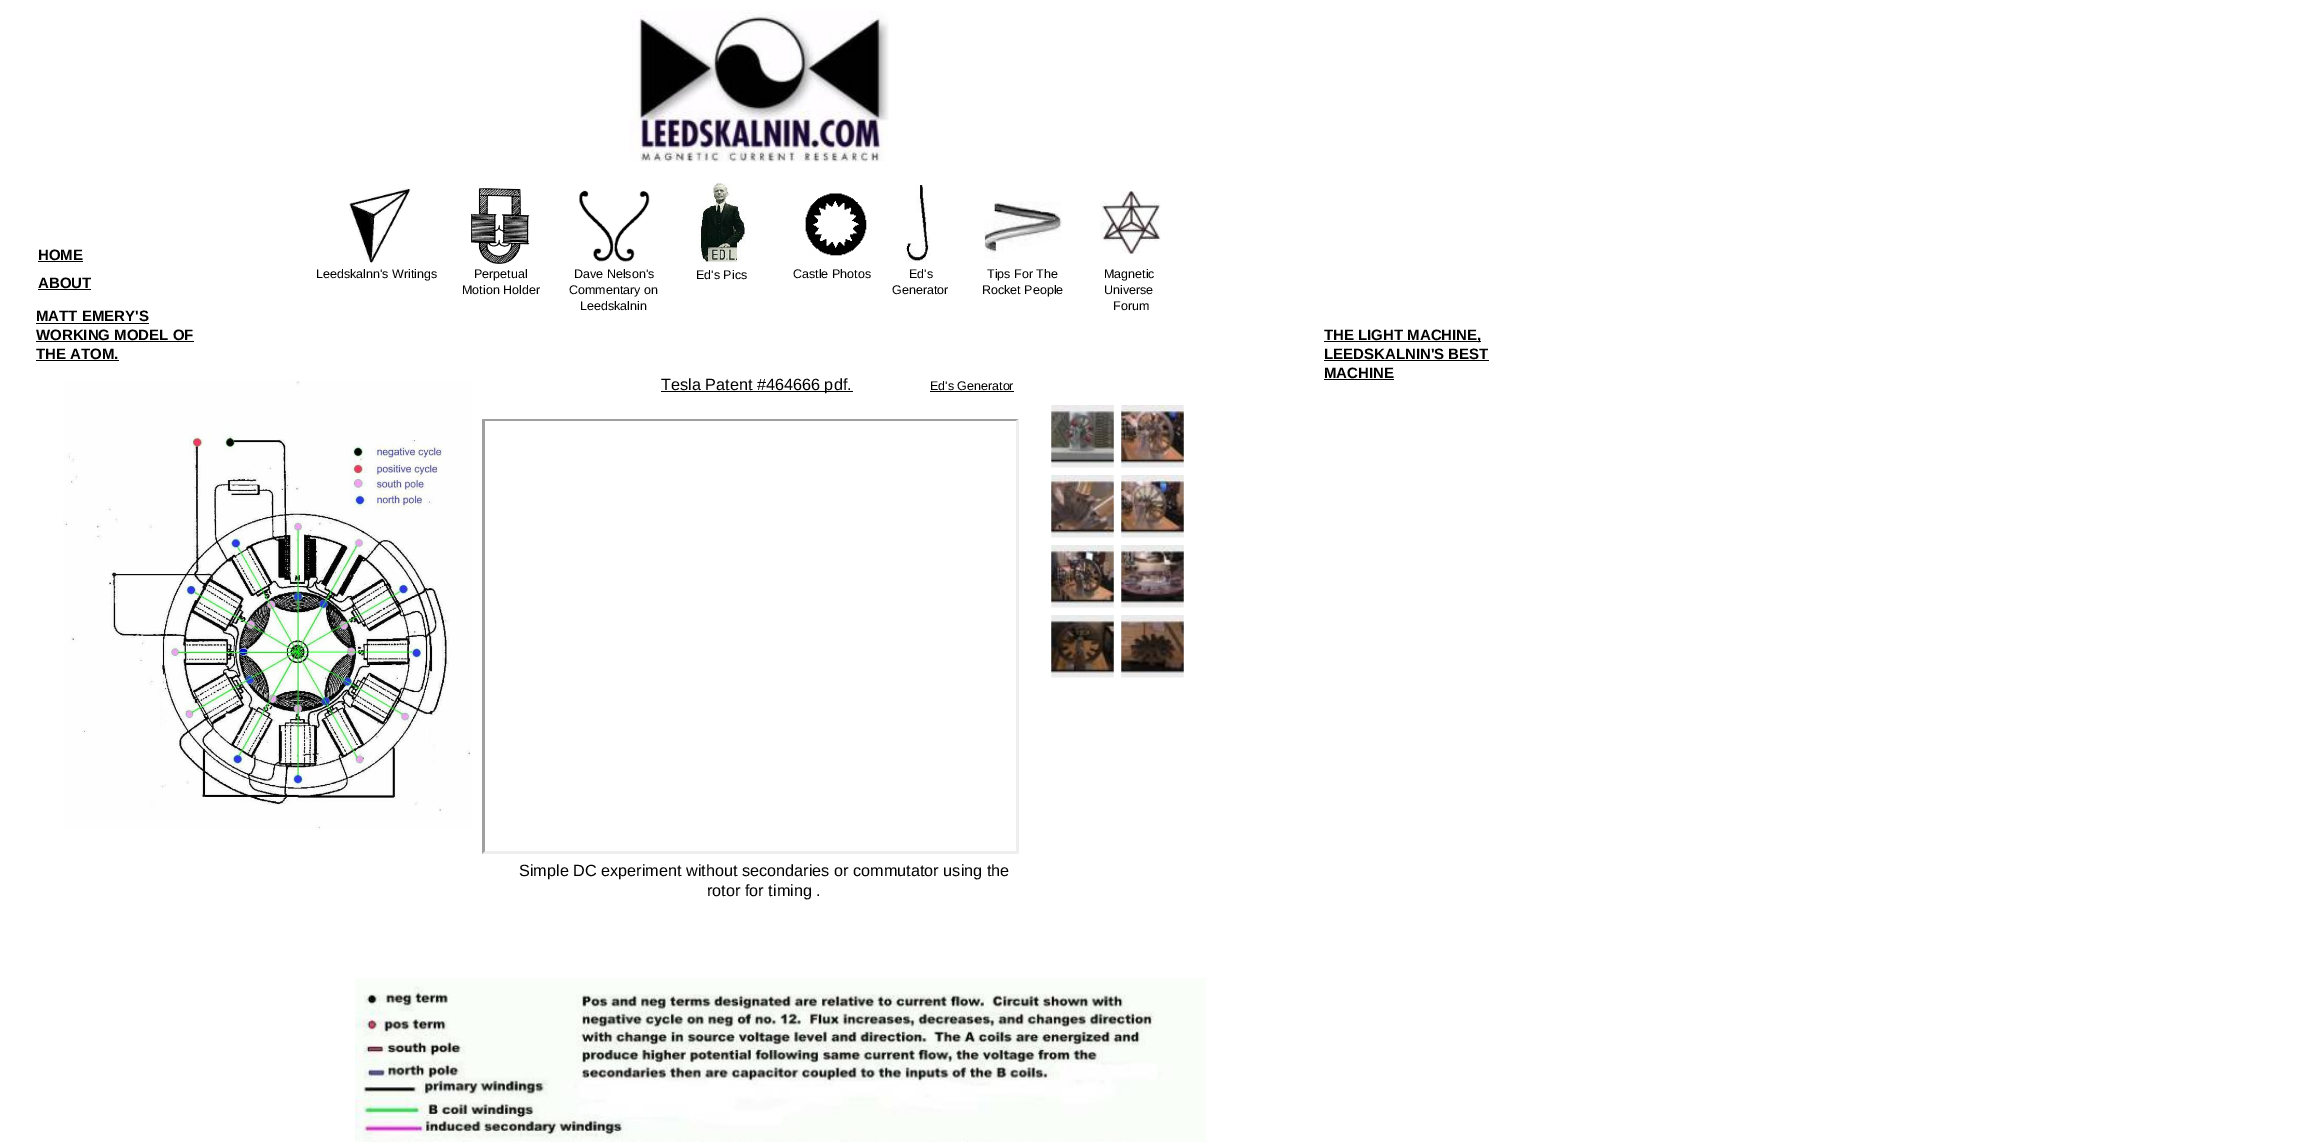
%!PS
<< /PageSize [2303 1142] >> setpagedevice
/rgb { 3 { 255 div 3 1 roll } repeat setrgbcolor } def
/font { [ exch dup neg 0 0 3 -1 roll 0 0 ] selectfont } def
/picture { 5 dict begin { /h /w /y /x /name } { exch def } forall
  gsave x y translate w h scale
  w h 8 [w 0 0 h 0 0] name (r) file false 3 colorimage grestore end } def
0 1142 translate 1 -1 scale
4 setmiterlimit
255 255 255 rgb
0 0 2303 1142 rectfill
(img/1.rgb) 630 10 259 152 picture
0 0 0 rgb
38 261 45 1 rectfill
(img/2.rgb) 349 188 62 75 picture
(img/3.rgb) 471 188 59 76 picture
(img/4.rgb) 579 190 71 72 picture
(img/5.rgb) 698 182 48 81 picture
(img/6.rgb) 805 193 62 63 picture
(img/7.rgb) 905 185 26 77 picture
(img/8.rgb) 984 201 78 58 picture
(img/9.rgb) 1100 191 61 63 picture
[
  [38 289 53 1 0 0 0]
  [36 323 113 1 0 0 0]
  [36 341 158 1 0 0 0]
  [36 360 83 1 0 0 0]
  [1324 341 157 1 0 0 0]
  [1324 360 165 1 0 0 0]
  [1324 379 70 1 0 0 0]
] { aload pop rgb rectfill } forall
(img/10.rgb) 63 381 408 449 picture
661 391 192 1 rectfill
930 391 84 1 rectfill
(img/11.rgb) 1051 405 63 63 picture
(img/12.rgb) 1121 405 63 63 picture
(img/13.rgb) 1051 475 63 63 picture
(img/14.rgb) 1121 475 63 63 picture
(img/15.rgb) 1051 545 63 63 picture
(img/16.rgb) 1121 545 63 63 picture
(img/17.rgb) 1051 615 63 63 picture
(img/18.rgb) 1121 615 63 63 picture
159 159 159 rgb
482 419 moveto 1019 419 lineto 1016 421 lineto 485 421 lineto closepath fill
238 238 238 rgb
1019 419 moveto 1019 854 lineto 1016 851 lineto 1016 421 lineto closepath fill
1019 854 moveto 482 854 lineto 485 851 lineto 1016 851 lineto closepath fill
159 159 159 rgb
482 854 moveto 482 419 lineto 485 421 lineto 485 851 lineto closepath fill
(img/19.rgb) 355 978 851 164 picture
/LiberationSans-Bold 15 font
0 0 0 rgb
38 260 moveto (HOME) show
/LiberationSans-Regular 12.5 font
[
  [(Leedskalnn's Writings) 316 278]
  [(Perpetual) 474 278]
  [(Motion Holder) 462 294]
  [(Dave Nelson's) 574 278]
  [(Commentary on) 569 294]
  [(Leedskalnin) 580 310]
  [(Ed's Pics) 696 279]
  [(Castle Photos) 793 278]
  [(Ed's) 909 278]
  [(Generator) 892 294]
  [(Tips For The) 987 278]
  [(Rocket People) 982 294]
  [(Magnetic) 1104 278]
  [(Universe) 1104 294]
  [(Forum) 1113 310]
] { aload pop moveto show } forall
/LiberationSans-Bold 15 font
[
  [(ABOUT) 38 288]
  [(MATT EMERY'S) 36 321]
  [(WORKING MODEL OF) 36 340]
  [(THE ATOM.) 36 359]
  [(THE LIGHT MACHINE,) 1324 340]
  [(LEEDSKALNIN'S BEST) 1324 359]
  [(MACHINE) 1324 378]
] { aload pop moveto show } forall
/LiberationSans-Regular 16.25 font
661 390 moveto (Tesla Patent #464666 pdf.) show
/LiberationSans-Regular 12.5 font
930 390 moveto (Ed's Generator) show
/LiberationSans-Regular 16.25 font
519 876 moveto (Simple DC experiment without secondaries or commutator using the) show
707 896 moveto (rotor for timing .) show
showpage
